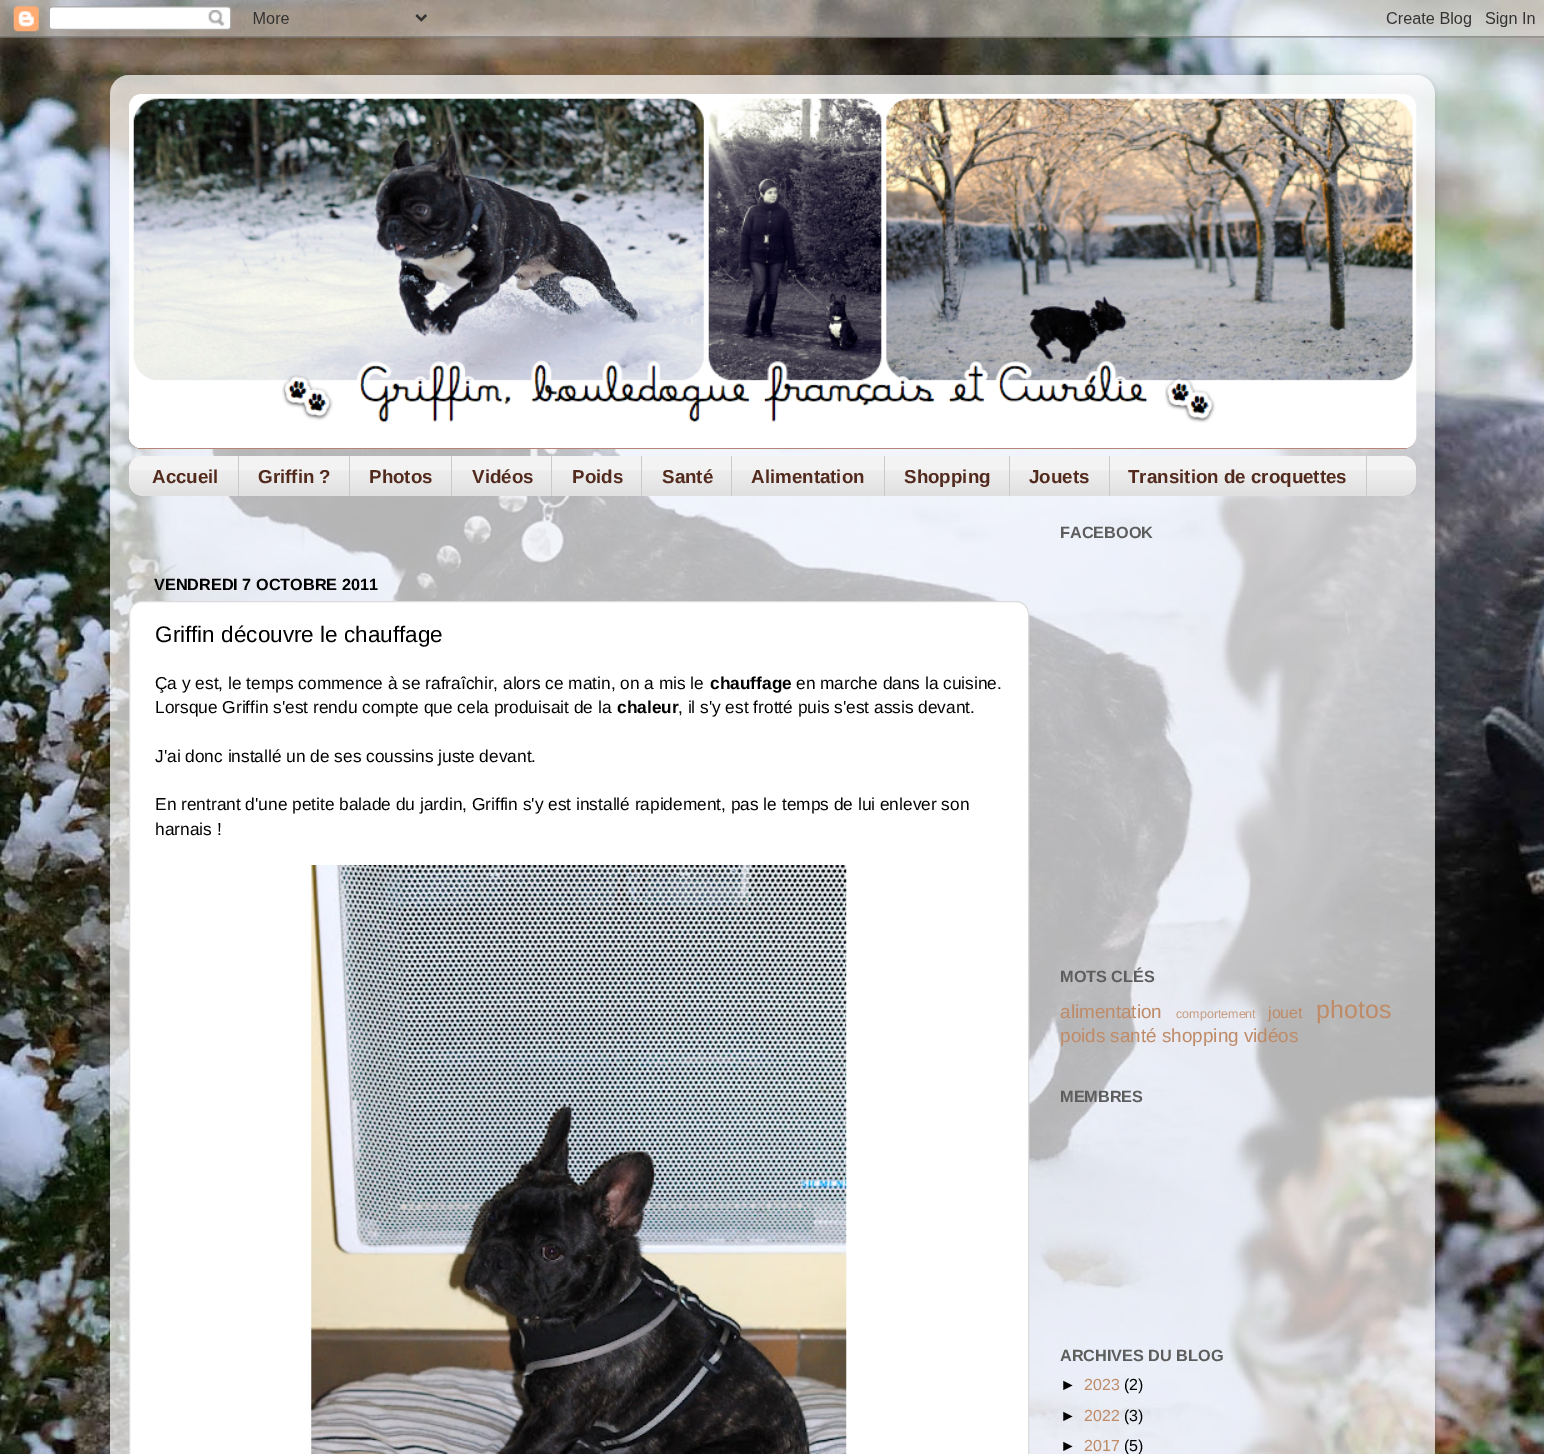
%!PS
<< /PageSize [1544 1454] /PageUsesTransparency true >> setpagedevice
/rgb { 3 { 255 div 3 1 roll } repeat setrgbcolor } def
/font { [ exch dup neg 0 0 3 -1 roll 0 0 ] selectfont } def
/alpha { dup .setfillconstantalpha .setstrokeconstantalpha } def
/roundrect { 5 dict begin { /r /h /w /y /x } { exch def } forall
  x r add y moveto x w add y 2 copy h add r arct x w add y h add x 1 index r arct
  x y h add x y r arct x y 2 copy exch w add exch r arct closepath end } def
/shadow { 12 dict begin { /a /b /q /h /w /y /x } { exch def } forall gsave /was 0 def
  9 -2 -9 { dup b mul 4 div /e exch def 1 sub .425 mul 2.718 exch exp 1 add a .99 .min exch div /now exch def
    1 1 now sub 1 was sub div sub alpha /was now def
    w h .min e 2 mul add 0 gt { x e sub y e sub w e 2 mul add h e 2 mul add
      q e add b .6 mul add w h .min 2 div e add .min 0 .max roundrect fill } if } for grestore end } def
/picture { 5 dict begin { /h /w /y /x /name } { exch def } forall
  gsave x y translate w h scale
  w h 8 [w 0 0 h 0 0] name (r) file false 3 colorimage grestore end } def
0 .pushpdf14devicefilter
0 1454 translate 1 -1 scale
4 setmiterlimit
255 255 255 rgb
0 0 1544 1454 rectfill
(img/1.rgb) 0 0 1544 1454 picture
(img/2.rgb) 0 0 1544 38 picture
gsave
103 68 moveto 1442 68 lineto 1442 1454 lineto 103 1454 lineto closepath 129 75 moveto 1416 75 lineto 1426.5 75 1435 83.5 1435 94 curveto 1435 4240 lineto 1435 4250.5 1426.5 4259 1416 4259 curveto 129 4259 lineto 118.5 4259 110 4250.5 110 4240 curveto 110 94 lineto 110 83.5 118.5 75 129 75 curveto closepath eoclip newpath
0 0 0 rgb
110 75 1325 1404 19 2 0.15 shadow
grestore
(img/3.rgb) 110 75 1325 1379 picture
129 42 14 rgb
129 94 1287 355 13 roundrect fill
(img/4.rgb) 129 94 1287 10 picture
(img/5.rgb) 129 94 1288 355 picture
243 243 243 rgb
129 456 1287 40 13 roundrect fill
(img/6.rgb) 129 470 1287 26 picture
[
  [238 456 1 40 202 202 202]
  [349 456 1 40 202 202 202]
  [451 456 1 40 202 202 202]
  [551 456 1 40 202 202 202]
  [641 456 1 40 202 202 202]
  [731 456 1 40 202 202 202]
  [884 456 1 40 202 202 202]
  [1009 456 1 40 202 202 202]
  [1109 456 1 40 202 202 202]
  [1366 456 1 40 202 202 202]
] { aload pop rgb rectfill } forall
255 255 255 rgb
129.5 601.5 899 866 12.5 roundrect gsave fill grestore
219 219 219 rgb
stroke
(img/7.rgb) 311 865 536 589 picture
/LiberationSans-Bold 18.75 font
82 42 29 rgb
[
  [(Accueil) 152 483]
  [(Griffin ?) 258 483]
  [(Photos) 369 483]
  [(Vidéos) 472 483]
  [(Poids) 572 483]
  [(Santé) 662 483]
  [(Alimentation) 751 483]
  [(Shopping) 904 483]
  [(Jouets) 1029 483]
  [(Transition de croquettes) 1128 483]
] { aload pop moveto show } forall
/LiberationSans-Bold 16.25 font
0 0 0 rgb
154 590 moveto (VENDREDI 7 OCTOBRE 2011) show
/LiberationSans-Regular 22.5 font
155 642 moveto (Griffin découvre le chauffage) show
/LiberationSans-Regular 17.3 font
155 689 moveto (Ça y est, le temps commence à se rafraîchir, alors ce matin, on a mis le) show
/LiberationSans-Bold 17.3 font
710 689 moveto (chauffage) show
/LiberationSans-Regular 17.3 font
796 689 moveto (en marche dans la cuisine.) show
155 713 moveto (Lorsque Griffin s'est rendu compte que cela produisait de la) show
/LiberationSans-Bold 17.3 font
617 713 moveto (chaleur) show
/LiberationSans-Regular 17.3 font
[
  [(, il s'y est frotté puis s'est assis devant.) 678 713]
  [(J'ai donc installé un de ses coussins juste devant.) 155 762]
  [(En rentrant d'une petite balade du jardin, Griffin s'y est installé rapidement, pas le temps de lui enlever son) 155 810]
  [(harnais !) 155 835]
] { aload pop moveto show } forall
/LiberationSans-Bold 16.25 font
93 93 93 rgb
1060 538 moveto (FACEBOOK) show
1060 982 moveto (MOTS CLÉS) show
/LiberationSans-Regular 18.9 font
191 138 102 rgb
1060 1018 moveto (alimentation) show
/LiberationSans-Regular 12.5 font
199 157 130 rgb
1176 1018 moveto (comportement) show
/LiberationSans-Regular 16 font
191 138 102 rgb
1268 1018 moveto (jouet) show
/LiberationSans-Regular 25 font
1316 1018 moveto (photos) show
/LiberationSans-Regular 18.9 font
1060 1042 moveto (poids santé shopping vidéos) show
/LiberationSans-Bold 16.25 font
93 93 93 rgb
1060 1102 moveto (MEMBRES) show
1060 1361 moveto (ARCHIVES DU BLOG) show
/LiberationSans-Regular 16 font
0 0 0 rgb
1060 1390 moveto (►) show
191 138 102 rgb
1084 1390 moveto (2023) show
0 0 0 rgb
1124 1390 moveto (\(2\)) show
1060 1421 moveto (►) show
191 138 102 rgb
1084 1421 moveto (2022) show
0 0 0 rgb
1124 1421 moveto (\(3\)) show
1060 1451 moveto (►) show
191 138 102 rgb
1084 1451 moveto (2017) show
0 0 0 rgb
1124 1451 moveto (\(5\)) show
.poppdf14devicefilter showpage
